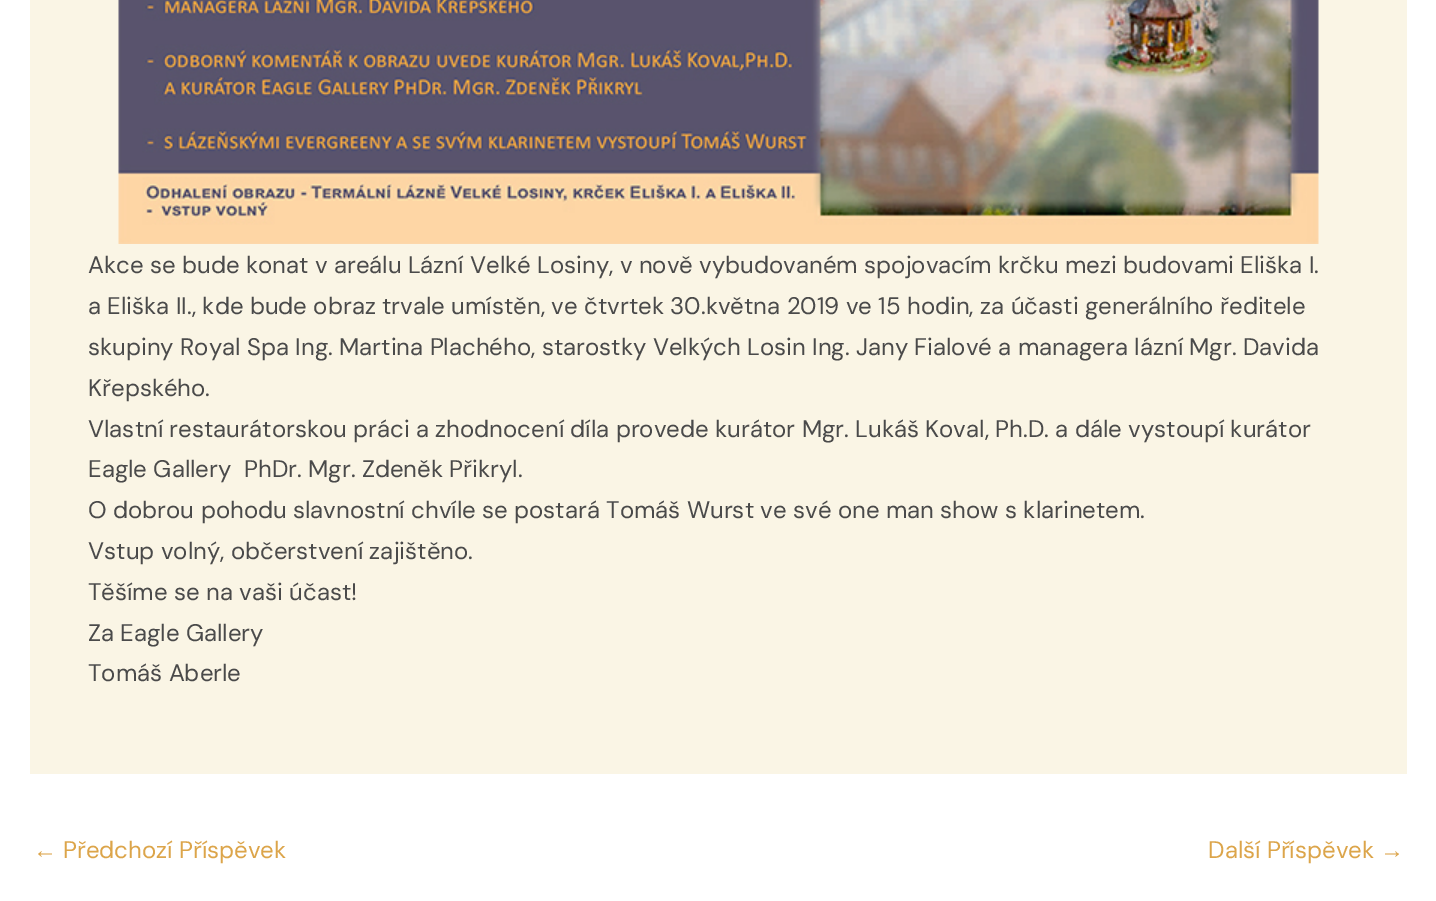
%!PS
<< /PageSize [1436 901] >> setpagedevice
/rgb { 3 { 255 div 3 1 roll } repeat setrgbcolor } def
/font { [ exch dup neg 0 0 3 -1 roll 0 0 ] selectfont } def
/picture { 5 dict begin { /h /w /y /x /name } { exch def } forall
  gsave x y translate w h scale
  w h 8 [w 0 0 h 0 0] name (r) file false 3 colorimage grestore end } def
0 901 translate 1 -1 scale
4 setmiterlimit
255 255 255 rgb
0 0 1436 901 rectfill
250 245 229 rgb
30 0 1377 774 rectfill
(img/1.rgb) 118 0 1201 244 picture
/DMSans-Regular 24 font
74 74 74 rgb
[
  [(Akce se bude konat v areálu Lázní Velké Losiny, v nově vybudovaném spojovacím krčku mezi budovami Eliška I.) 88 273]
  [(a Eliška II., kde bude obraz trvale umístěn, ve čtvrtek 30.května 2019 ve 15 hodin, za účasti generálního ředitele) 88 314]
  [(skupiny Royal Spa Ing. Martina Plachého, starostky Velkých Losin Ing. Jany Fialové a managera lázní Mgr. Davida) 88 355]
  [(Křepského.) 88 396]
  [(Vlastní restaurátorskou práci a zhodnocení díla provede kurátor Mgr. Lukáš Koval, Ph.D. a dále vystoupí kurátor) 88 437]
  [(Eagle Gallery  PhDr. Mgr. Zdeněk Přikryl.) 88 477]
  [(O dobrou pohodu slavnostní chvíle se postará Tomáš Wurst ve své one man show s klarinetem.) 88 518]
  [(Vstup volný, občerstvení zajištěno.) 88 559]
  [(Těšíme se na vaši účast!) 88 600]
  [(Za Eagle Gallery) 88 641]
  [(Tomáš Aberle) 88 681]
] { aload pop moveto show } forall
/LiberationSans-Regular 24 font
220 165 74 rgb
33 858 moveto (←) show
/DMSans-Regular 24 font
63 858 moveto (Předchozí Příspěvek) show
1208 858 moveto (Další Příspěvek) show
/LiberationSans-Regular 24 font
1380 858 moveto (→) show
showpage
